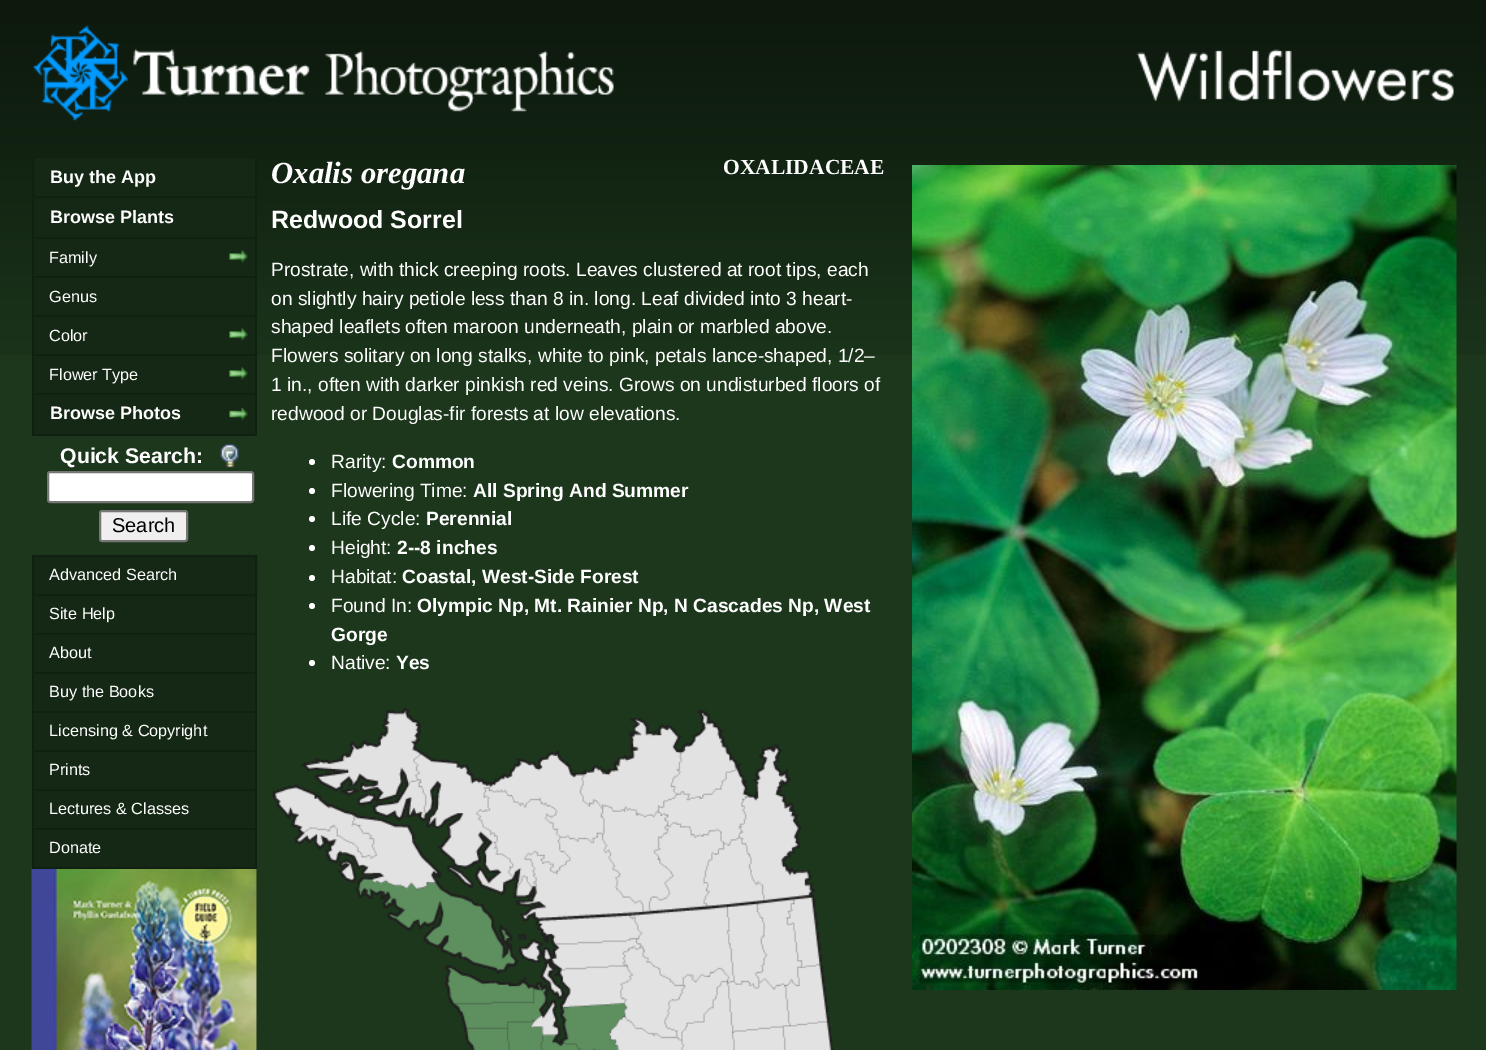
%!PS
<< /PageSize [1486 1050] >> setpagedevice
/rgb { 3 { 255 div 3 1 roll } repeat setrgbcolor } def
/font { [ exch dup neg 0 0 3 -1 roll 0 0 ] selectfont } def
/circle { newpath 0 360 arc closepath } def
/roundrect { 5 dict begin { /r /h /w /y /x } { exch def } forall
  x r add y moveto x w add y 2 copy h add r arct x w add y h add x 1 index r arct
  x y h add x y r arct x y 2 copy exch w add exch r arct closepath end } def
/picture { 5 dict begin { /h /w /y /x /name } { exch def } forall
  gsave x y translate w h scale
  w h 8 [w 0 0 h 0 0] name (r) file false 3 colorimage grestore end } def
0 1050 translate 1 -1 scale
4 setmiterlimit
28 55 28 rgb
0 0 1486 1050 rectfill
(img/1.rgb) 0 0 1486 355 picture
(img/2.rgb) 32 25 582 96 picture
(img/3.rgb) 1136 49 318 53 picture
(img/4.rgb) 256 869 1 181 picture
21 40 21 rgb
34 158 221 276 rectfill
17 33 17 rgb
2 setlinewidth
33 157 223 40 rectstroke
[
  [255 198 2 237 17 33 17]
  [32 237 225 2 17 33 17]
  [32 198 2 41 17 33 17]
  [32 276 225 2 17 33 17]
  [32 239 2 39 17 33 17]
] { aload pop rgb rectfill } forall
(img/5.rgb) 229 250 19 13 picture
[
  [32 315 225 2 17 33 17]
  [32 278 2 39 17 33 17]
  [32 354 225 2 17 33 17]
  [32 317 2 39 17 33 17]
] { aload pop rgb rectfill } forall
(img/5.rgb) 229 328 19 13 picture
32 393 225 2 rectfill
32 356 2 39 rectfill
(img/5.rgb) 229 367 19 13 picture
32 434 225 2 rectfill
32 395 2 40 rectfill
(img/6.rgb) 229 407 19 14 picture
(img/7.rgb) 220 444 19 24 picture
255 255 255 rgb
48 472 205 30 2 roundrect gsave fill grestore
118 118 118 rgb
stroke
239 239 239 rgb
100 511 87 30 2 roundrect gsave fill grestore
118 118 118 rgb
stroke
21 40 21 rgb
34 557 221 310 rectfill
17 33 17 rgb
33 556 223 39 rectstroke
(img/8.rgb) 31 868 226 182 picture
[
  [255 596 2 273 17 33 17]
  [32 633 225 2 17 33 17]
  [32 596 2 39 17 33 17]
  [32 672 225 2 17 33 17]
  [32 635 2 39 17 33 17]
  [32 711 225 2 17 33 17]
  [32 674 2 39 17 33 17]
  [32 750 225 2 17 33 17]
  [32 713 2 39 17 33 17]
  [32 789 225 2 17 33 17]
  [32 752 2 39 17 33 17]
  [32 828 225 2 17 33 17]
  [32 791 2 39 17 33 17]
  [32 867 225 2 17 33 17]
  [32 830 2 39 17 33 17]
] { aload pop rgb rectfill } forall
(img/9.rgb) 912 165 545 825 picture
255 255 255 rgb
312 462 3 circle fill
312 491 3 circle fill
312 519 3 circle fill
312 548 3 circle fill
312 578 3 circle fill
312 606 3 circle fill
312 663 3 circle fill
(img/10.rgb) 272 707 562 343 picture
/LiberationSans-Bold 18 font
50 183 moveto (Buy the App) show
50 223 moveto (Browse Plants) show
/LiberationSans-Regular 16.25 font
[
  [(Family) 49 263]
  [(Genus) 49 302]
  [(Color) 49 341]
  [(Flower Type) 49 380]
] { aload pop moveto show } forall
/LiberationSans-Bold 18 font
50 419 moveto (Browse Photos) show
/LiberationSans-Bold 21.25 font
60 463 moveto (Quick Search:) show
/LiberationSans-Regular 20 font
0 0 0 rgb
112 532 moveto (Search) show
/LiberationSans-Regular 16.25 font
255 255 255 rgb
[
  [(Advanced Search) 49 580]
  [(Site Help) 49 619]
  [(About) 49 658]
  [(Buy the Books) 49 697]
  [(Licensing & Copyright) 49 736]
  [(Prints) 49 775]
  [(Lectures & Classes) 49 814]
  [(Donate) 49 853]
] { aload pop moveto show } forall
/LiberationSerif-BoldItalic 30.75 font
271 183 moveto (Oxalis oregana) show
/LiberationSerif-Bold 21.5 font
723 174 moveto (OXALIDACEAE) show
/LiberationSans-Bold 25 font
271 228 moveto (Redwood Sorrel) show
/LiberationSans-Regular 19.2 font
[
  [(Prostrate, with thick creeping roots. Leaves clustered at root tips, each) 271 276]
  [(on slightly hairy petiole less than 8 in. long. Leaf divided into 3 heart-) 271 305]
  [(shaped leaflets often maroon underneath, plain or marbled above.) 271 333]
  [(Flowers solitary on long stalks, white to pink, petals lance-shaped, 1/2–) 271 362]
  [(1 in., often with darker pinkish red veins. Grows on undisturbed floors of) 271 391]
  [(redwood or Douglas-fir forests at low elevations.) 271 420]
  [(Rarity:) 331 468]
] { aload pop moveto show } forall
/LiberationSans-Bold 19.2 font
392 468 moveto (Common) show
/LiberationSans-Regular 19.2 font
331 497 moveto (Flowering Time:) show
/LiberationSans-Bold 19.2 font
473 497 moveto (All Spring And Summer) show
/LiberationSans-Regular 19.2 font
331 525 moveto (Life Cycle:) show
/LiberationSans-Bold 19.2 font
426 525 moveto (Perennial) show
/LiberationSans-Regular 19.2 font
331 554 moveto (Height:) show
/LiberationSans-Bold 19.2 font
397 554 moveto (2--8 inches) show
/LiberationSans-Regular 19.2 font
331 583 moveto (Habitat:) show
/LiberationSans-Bold 19.2 font
402 583 moveto (Coastal, West-Side Forest) show
/LiberationSans-Regular 19.2 font
331 612 moveto (Found In:) show
/LiberationSans-Bold 19.2 font
417 612 moveto (Olympic Np, Mt. Rainier Np, N Cascades Np, West) show
331 641 moveto (Gorge) show
/LiberationSans-Regular 19.2 font
331 669 moveto (Native:) show
/LiberationSans-Bold 19.2 font
396 669 moveto (Yes) show
showpage
